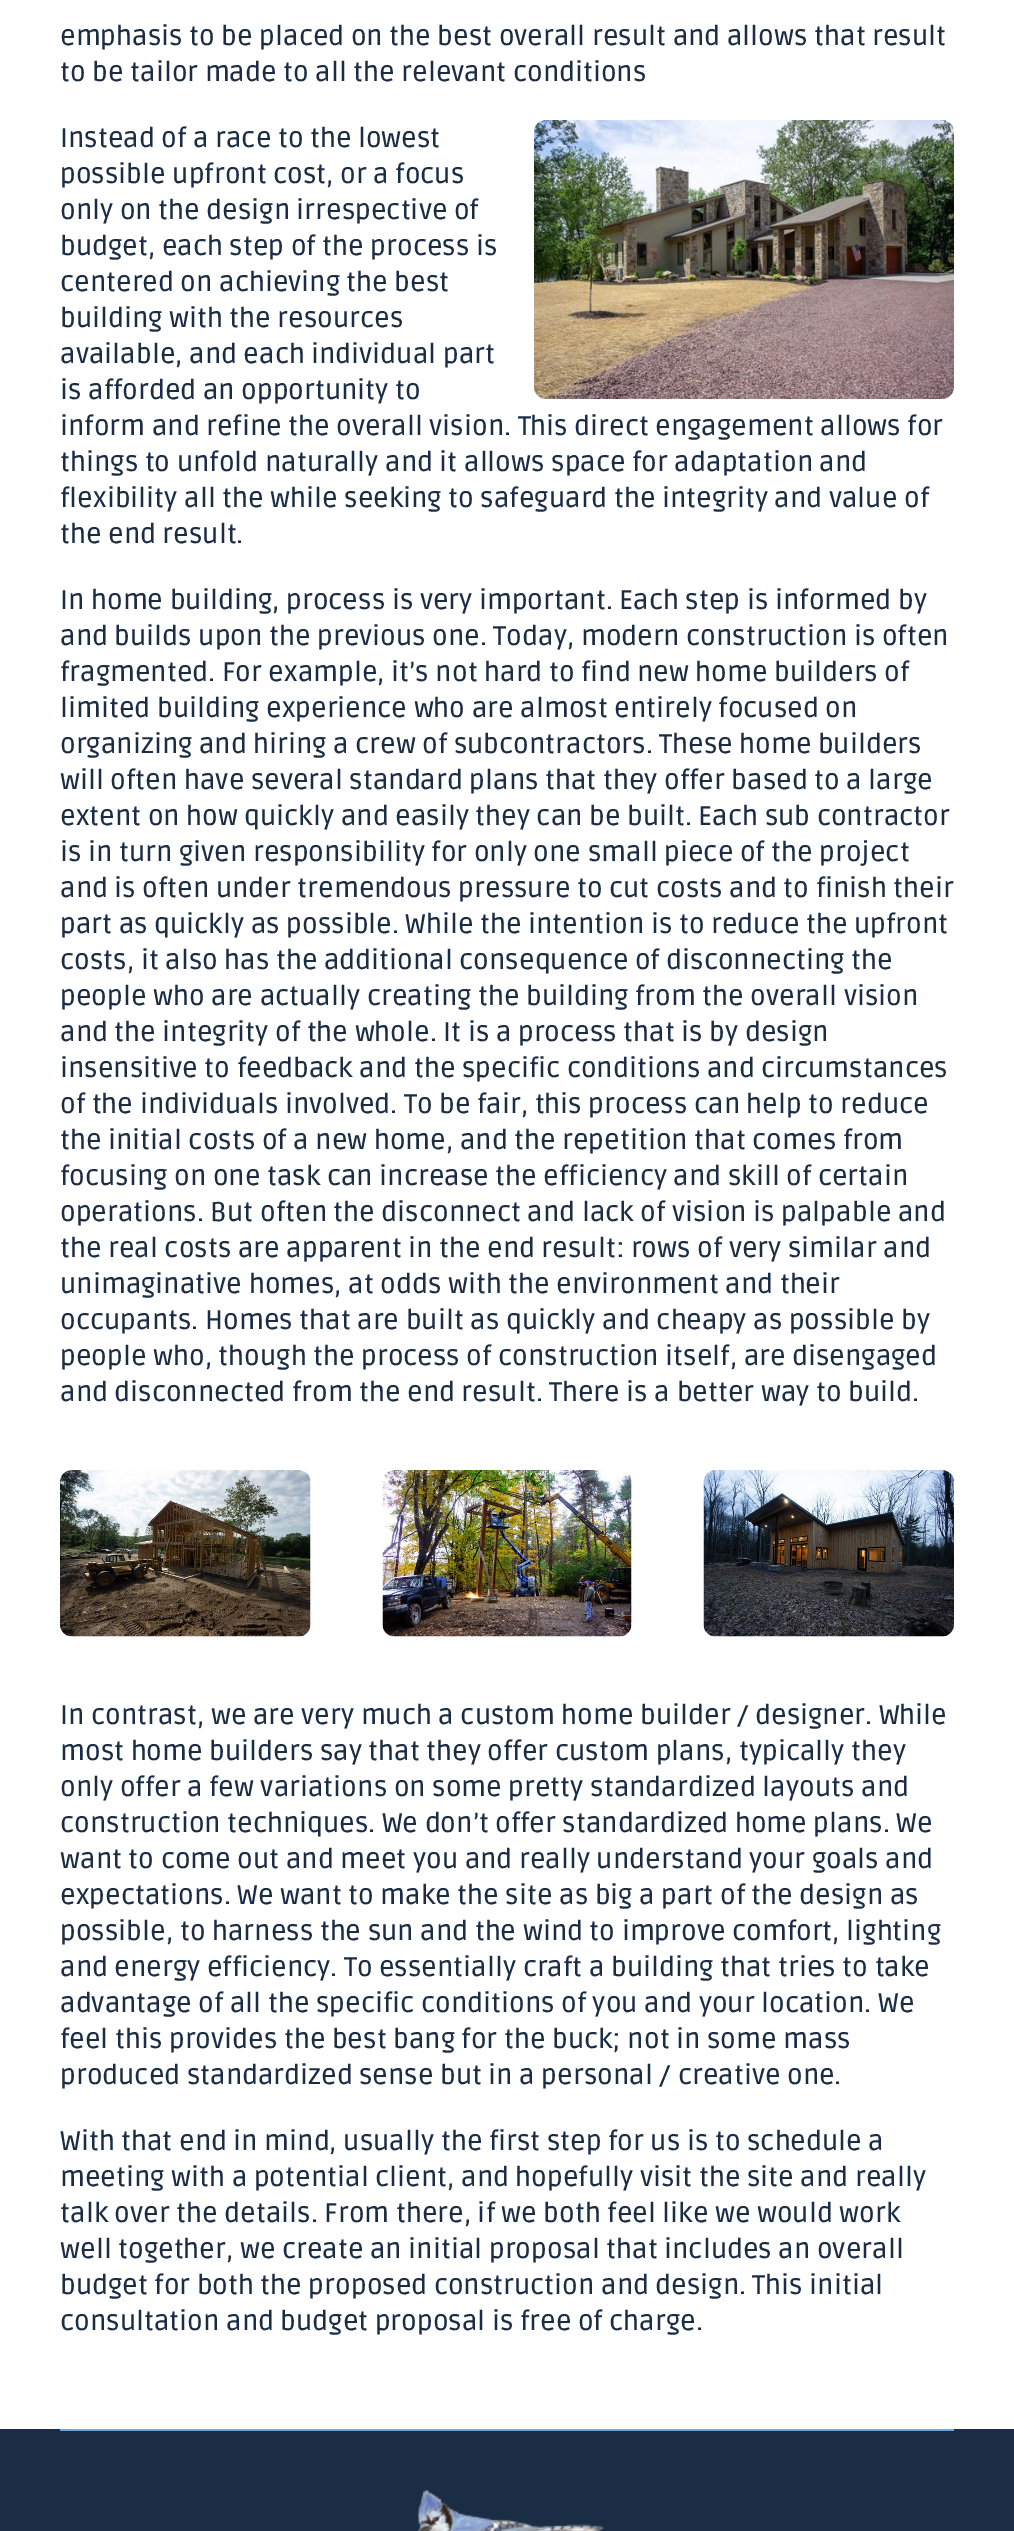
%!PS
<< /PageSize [1014 2531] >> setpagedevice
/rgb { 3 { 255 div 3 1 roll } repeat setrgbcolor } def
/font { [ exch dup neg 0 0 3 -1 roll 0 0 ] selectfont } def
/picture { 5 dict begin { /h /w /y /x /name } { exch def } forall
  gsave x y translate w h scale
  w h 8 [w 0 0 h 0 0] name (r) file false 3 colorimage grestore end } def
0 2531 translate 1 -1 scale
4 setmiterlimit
255 255 255 rgb
0 0 1014 2531 rectfill
(img/1.rgb) 534 120 420 279 picture
(img/2.rgb) 60 1470 251 167 picture
(img/3.rgb) 382 1470 250 167 picture
(img/4.rgb) 703 1470 251 167 picture
26 45 68 rgb
0 2429 1014 102 rectfill
110 163 224 rgb
60 2429 894 2 rectfill
(img/5.rgb) 417 2490 187 41 picture
/Ruda-Medium 27 font
26 45 68 rgb
[
  [(emphasis to be placed on the best overall result and allows that result) 60 45]
  [(to be tailor made to all the relevant conditions) 60 81]
  [(Instead of a race to the lowest) 60 147]
  [(possible upfront cost, or a focus) 60 183]
  [(only on the design irrespective of) 60 219]
  [(budget, each step of the process is) 60 255]
  [(centered on achieving the best) 60 291]
  [(building with the resources) 60 327]
  [(available, and each individual part) 60 363]
  [(is afforded an opportunity to) 60 399]
  [(inform and refine the overall vision. This direct engagement allows for) 60 435]
  [(things to unfold naturally and it allows space for adaptation and) 60 471]
  [(flexibility all the while seeking to safeguard the integrity and value of) 60 507]
  [(the end result.) 60 543]
  [(In home building, process is very important. Each step is informed by) 60 609]
  [(and builds upon the previous one. Today, modern construction is often) 60 645]
  [(fragmented. For example, it’s not hard to find new home builders of) 60 681]
  [(limited building experience who are almost entirely focused on) 60 717]
  [(organizing and hiring a crew of subcontractors. These home builders) 60 753]
  [(will often have several standard plans that they offer based to a large) 60 789]
  [(extent on how quickly and easily they can be built. Each sub contractor) 60 825]
  [(is in turn given responsibility for only one small piece of the project) 60 861]
  [(and is often under tremendous pressure to cut costs and to finish their) 60 897]
  [(part as quickly as possible. While the intention is to reduce the upfront) 60 933]
  [(costs, it also has the additional consequence of disconnecting the) 60 969]
  [(people who are actually creating the building from the overall vision) 60 1005]
  [(and the integrity of the whole. It is a process that is by design) 60 1041]
  [(insensitive to feedback and the specific conditions and circumstances) 60 1077]
  [(of the individuals involved. To be fair, this process can help to reduce) 60 1113]
  [(the initial costs of a new home, and the repetition that comes from) 60 1149]
  [(focusing on one task can increase the efficiency and skill of certain) 60 1185]
  [(operations. But often the disconnect and lack of vision is palpable and) 60 1221]
  [(the real costs are apparent in the end result: rows of very similar and) 60 1257]
  [(unimaginative homes, at odds with the environment and their) 60 1293]
  [(occupants. Homes that are built as quickly and cheapy as possible by) 60 1329]
  [(people who, though the process of construction itself, are disengaged) 60 1365]
  [(and disconnected from the end result. There is a better way to build.) 60 1401]
  [(In contrast, we are very much a custom home builder / designer. While) 60 1724]
  [(most home builders say that they offer custom plans, typically they) 60 1760]
  [(only offer a few variations on some pretty standardized layouts and) 60 1796]
  [(construction techniques. We don’t offer standardized home plans. We) 60 1832]
  [(want to come out and meet you and really understand your goals and) 60 1868]
  [(expectations. We want to make the site as big a part of the design as) 60 1904]
  [(possible, to harness the sun and the wind to improve comfort, lighting) 60 1940]
  [(and energy efficiency. To essentially craft a building that tries to take) 60 1976]
  [(advantage of all the specific conditions of you and your location. We) 60 2012]
  [(feel this provides the best bang for the buck; not in some mass) 60 2048]
  [(produced standardized sense but in a personal / creative one.) 60 2084]
  [(With that end in mind, usually the first step for us is to schedule a) 60 2150]
  [(meeting with a potential client, and hopefully visit the site and really) 60 2186]
  [(talk over the details. From there, if we both feel like we would work) 60 2222]
  [(well together, we create an initial proposal that includes an overall) 60 2258]
  [(budget for both the proposed construction and design. This initial) 60 2294]
  [(consultation and budget proposal is free of charge.) 60 2330]
] { aload pop moveto show } forall
showpage
